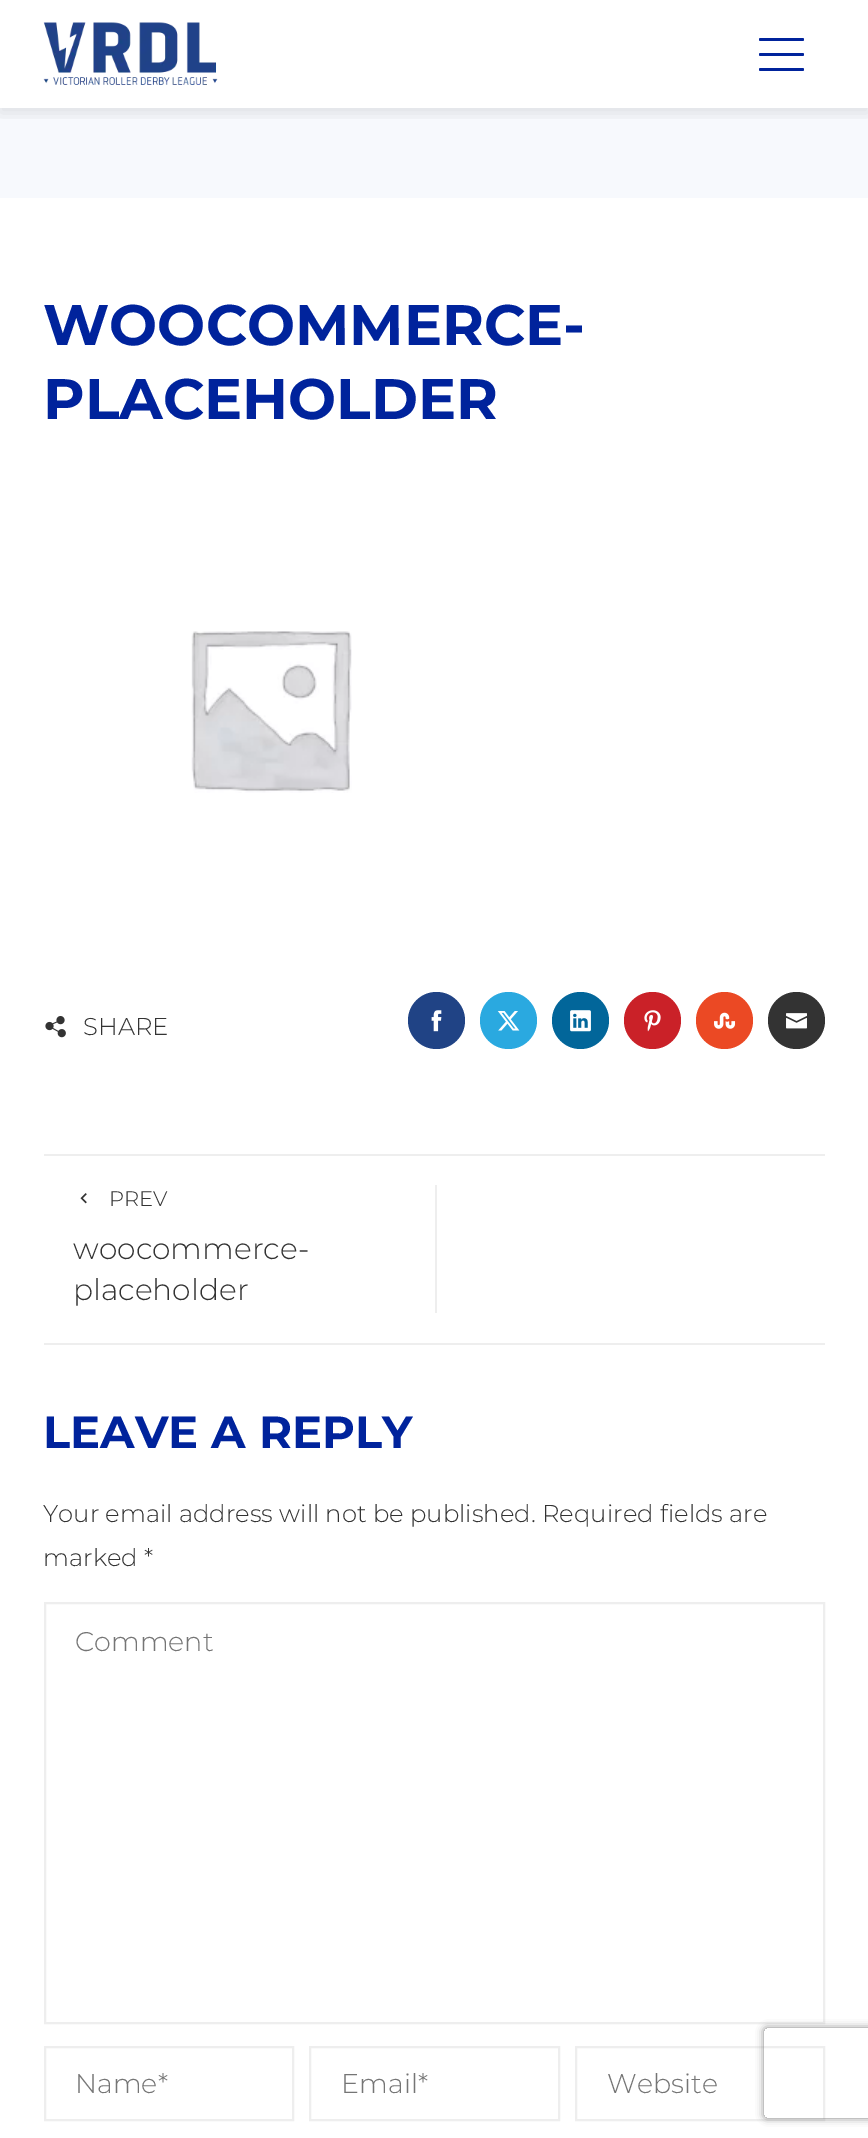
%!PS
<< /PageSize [868 2138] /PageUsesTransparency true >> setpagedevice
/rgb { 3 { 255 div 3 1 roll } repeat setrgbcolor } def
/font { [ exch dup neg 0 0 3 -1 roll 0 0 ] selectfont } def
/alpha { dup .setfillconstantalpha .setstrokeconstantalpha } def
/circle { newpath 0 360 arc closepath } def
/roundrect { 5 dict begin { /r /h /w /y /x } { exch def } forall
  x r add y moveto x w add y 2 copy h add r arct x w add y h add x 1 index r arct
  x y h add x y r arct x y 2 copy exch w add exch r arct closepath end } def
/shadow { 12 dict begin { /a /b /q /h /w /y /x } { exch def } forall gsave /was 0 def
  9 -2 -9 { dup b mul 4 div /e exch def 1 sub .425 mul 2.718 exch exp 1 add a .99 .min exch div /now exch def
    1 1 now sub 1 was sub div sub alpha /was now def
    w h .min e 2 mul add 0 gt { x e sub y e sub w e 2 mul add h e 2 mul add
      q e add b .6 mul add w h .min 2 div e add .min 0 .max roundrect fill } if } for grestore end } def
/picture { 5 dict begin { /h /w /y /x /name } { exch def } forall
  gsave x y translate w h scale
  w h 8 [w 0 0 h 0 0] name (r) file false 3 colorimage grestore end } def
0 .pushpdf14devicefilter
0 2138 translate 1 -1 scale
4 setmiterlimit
255 255 255 rgb
0 0 868 2138 rectfill
247 249 253 rgb
0 108 868 90 rectfill
gsave
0 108 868 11 rectclip
0 0 0 rgb
0 5 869 108 0 7.5 0.1 shadow
grestore
(img/1.rgb) 43 22 175 63 picture
0 35 156 rgb
759 38 45 3 1.5 roundrect fill
759 53 45 3 1.5 roundrect fill
759 68 45 3 1.5 roundrect fill
(img/2.rgb) 191 631 161 162 picture
(img/3.rgb) 45 1016 21 22 picture
32 67 133 rgb
436.5 1020.5 28.5 circle fill
(img/4.rgb) 431 1010 11 22 picture
42 169 224 rgb
508.5 1020.5 28.5 circle fill
(img/5.rgb) 497 1011 23 20 picture
2 102 154 rgb
580.5 1020.5 28.5 circle fill
(img/6.rgb) 570 1010 21 22 picture
202 33 40 rgb
652.5 1020.5 28.5 circle fill
(img/7.rgb) 644 1010 17 22 picture
235 73 36 rgb
724.5 1020.5 28.5 circle fill
(img/8.rgb) 714 1012 22 17 picture
51 51 51 rgb
796.5 1020.5 28.5 circle fill
(img/9.rgb) 786 1013 21 16 picture
238 238 238 rgb
44 1154 781 2 rectfill
44 1343 781 2 rectfill
(img/10.rgb) 80 1193 7 11 picture
435 1185 2 128 rectfill
2 setlinewidth
45 1603 779 420 rectstroke
45 2047 248 73 rectstroke
310 2047 249 73 rectstroke
576 2047 248 73 rectstroke
gsave
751 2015 moveto 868 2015 lineto 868 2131 lineto 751 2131 lineto closepath 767 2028 moveto 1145 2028 lineto 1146.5 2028 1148 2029.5 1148 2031 curveto 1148 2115 lineto 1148 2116.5 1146.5 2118 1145 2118 curveto 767 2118 lineto 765.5 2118 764 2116.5 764 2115 curveto 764 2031 lineto 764 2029.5 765.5 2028 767 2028 curveto closepath eoclip newpath
128 128 128 rgb
764 2028 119 90 3 4 1 shadow
grestore
/Montserrat-Bold 57 font
0 35 156 rgb
43 345 moveto (WOOCOMMERCE-) show
43 419 moveto (PLACEHOLDER) show
/Montserrat-Light 24.3 font
51 51 51 rgb
83 1035 moveto (SHARE) show
/Montserrat-Light 21 font
109 1206 moveto (PREV) show
/Montserrat-Light 29.75 font
73 1259 moveto (woocommerce-) show
73 1300 moveto (placeholder) show
/Montserrat-Bold 45 font
0 35 156 rgb
43 1448 moveto (LEAVE A REPLY) show
/Montserrat-Light 24.3 font
51 51 51 rgb
[
  [(Your email address will not be published.) 43 1522]
  [(Required fields are) 542 1522]
  [(marked *) 43 1566]
] { aload pop moveto show } forall
/Montserrat-Light 27 font
117 117 117 rgb
[
  [(Comment) 75 1651]
  [(Name*) 75 2093]
  [(Email*) 341 2093]
  [(Website) 607 2093]
] { aload pop moveto show } forall
.poppdf14devicefilter showpage
